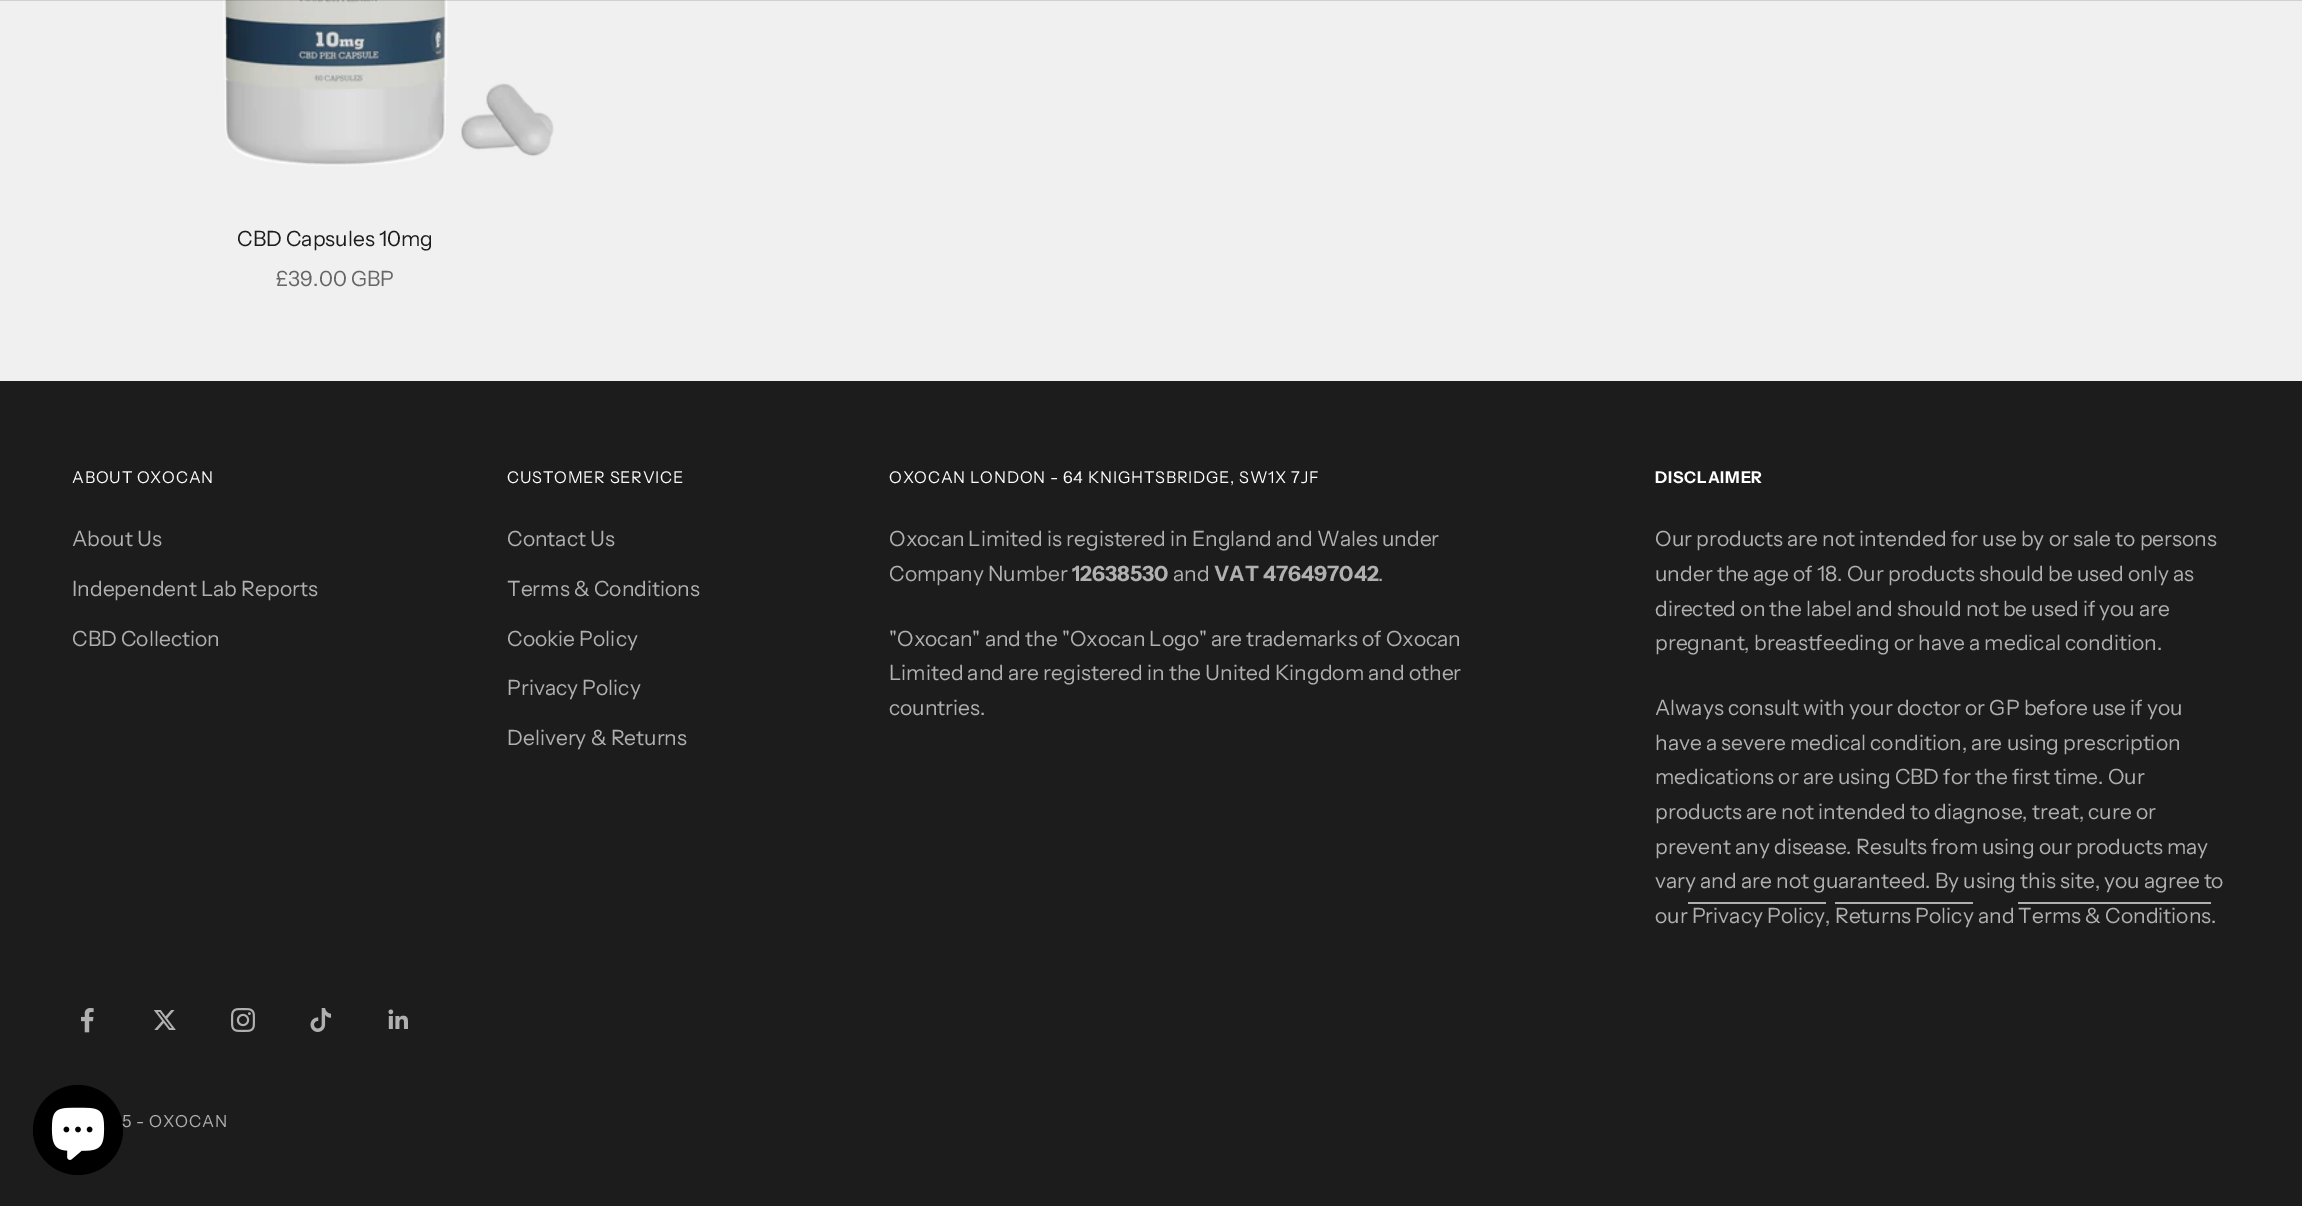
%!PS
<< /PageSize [2302 1206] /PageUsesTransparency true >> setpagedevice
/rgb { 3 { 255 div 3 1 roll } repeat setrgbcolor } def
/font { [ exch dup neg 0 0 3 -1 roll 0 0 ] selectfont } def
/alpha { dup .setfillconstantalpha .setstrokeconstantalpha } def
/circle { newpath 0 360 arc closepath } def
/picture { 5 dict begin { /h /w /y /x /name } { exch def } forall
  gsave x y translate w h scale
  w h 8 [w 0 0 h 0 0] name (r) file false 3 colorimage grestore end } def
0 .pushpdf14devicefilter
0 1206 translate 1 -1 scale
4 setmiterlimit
240 240 240 rgb
0 0 2302 1206 rectfill
(img/1.rgb) 223 0 331 166 picture
0.15 alpha
[
  [0 0 2302 1 28 28 28]
] { aload pop rgb rectfill } forall
1 alpha
[
  [0 381 2302 825 28 28 28]
  [1688 902 138 2 176 176 176]
  [1835 902 138 2 176 176 176]
  [2018 902 193 2 176 176 176]
] { aload pop rgb rectfill } forall
(img/2.rgb) 81 1008 13 25 picture
(img/3.rgb) 153 1010 23 20 picture
(img/4.rgb) 231 1008 24 24 picture
(img/5.rgb) 310 1008 22 24 picture
(img/6.rgb) 388 1009 20 20 picture
0 0 0 rgb
78 1130 45 circle fill
(img/7.rgb) 51 1107 54 53 picture
/InstrumentSans-Regular 21 font
28 28 28 rgb
237 246 moveto (CBD Capsules 10mg) show
102 102 102 rgb
276 286 moveto (£39.00 GBP) show
/InstrumentSans-Regular 16.2 font
255 255 255 rgb
72 483 moveto 0.8 0 (ABOUT OXOCAN) ashow
/InstrumentSans-Regular 21 font
176 176 176 rgb
[
  [(About Us) 72 546]
  [(Independent Lab Reports) 72 596]
  [(CBD Collection) 72 646]
] { aload pop moveto show } forall
/InstrumentSans-Regular 16.2 font
255 255 255 rgb
507 483 moveto 0.8 0 (CUSTOMER SERVICE) ashow
/InstrumentSans-Regular 21 font
176 176 176 rgb
[
  [(Contact Us) 507 546]
  [(Terms & Conditions) 507 596]
  [(Cookie Policy) 507 646]
  [(Privacy Policy) 507 695]
  [(Delivery & Returns) 507 745]
] { aload pop moveto show } forall
/InstrumentSans-Regular 16.2 font
255 255 255 rgb
889 483 moveto 0.8 0 (OXOCAN LONDON - 64 KNIGHTSBRIDGE, SW1X 7JF) ashow
/InstrumentSans-Regular 21 font
176 176 176 rgb
889 546 moveto (Oxocan Limited is registered in England and Wales under) show
889 581 moveto (Company Number) show
/InstrumentSans-Bold 21 font
1072 581 moveto (12638530) show
/InstrumentSans-Regular 21 font
1173 581 moveto (and) show
/InstrumentSans-Bold 21 font
1214 581 moveto (VAT 476497042) show
/InstrumentSans-Regular 21 font
[
  [(.) 1378 581]
  [("Oxocan" and the "Oxocan Logo" are trademarks of Oxocan) 889 646]
  [(Limited and are registered in the United Kingdom and other) 889 680]
  [(countries.) 889 715]
] { aload pop moveto show } forall
/InstrumentSans-Bold 16.2 font
255 255 255 rgb
1655 483 moveto 0.8 0 (DISCLAIMER) ashow
/InstrumentSans-Regular 21 font
176 176 176 rgb
[
  [(Our products are not intended for use by or sale to persons) 1655 546]
  [(under the age of 18. Our products should be used only as) 1655 581]
  [(directed on the label and should not be used if you are) 1655 616]
  [(pregnant, breastfeeding or have a medical condition.) 1655 650]
  [(Always consult with your doctor or GP before use if you) 1655 715]
  [(have a severe medical condition, are using prescription) 1655 750]
  [(medications or are using CBD for the first time. Our) 1655 784]
  [(products are not intended to diagnose, treat, cure or) 1655 819]
  [(prevent any disease. Results from using our products may) 1655 854]
  [(vary and are not guaranteed. By using this site, you agree to) 1655 888]
  [(our Privacy Policy, Returns Policy and Terms & Conditions.) 1655 923]
] { aload pop moveto show } forall
/InstrumentSans-Regular 16.5 font
122 1127 moveto 0.75 0 (5 - OXOCAN) ashow
.poppdf14devicefilter showpage
